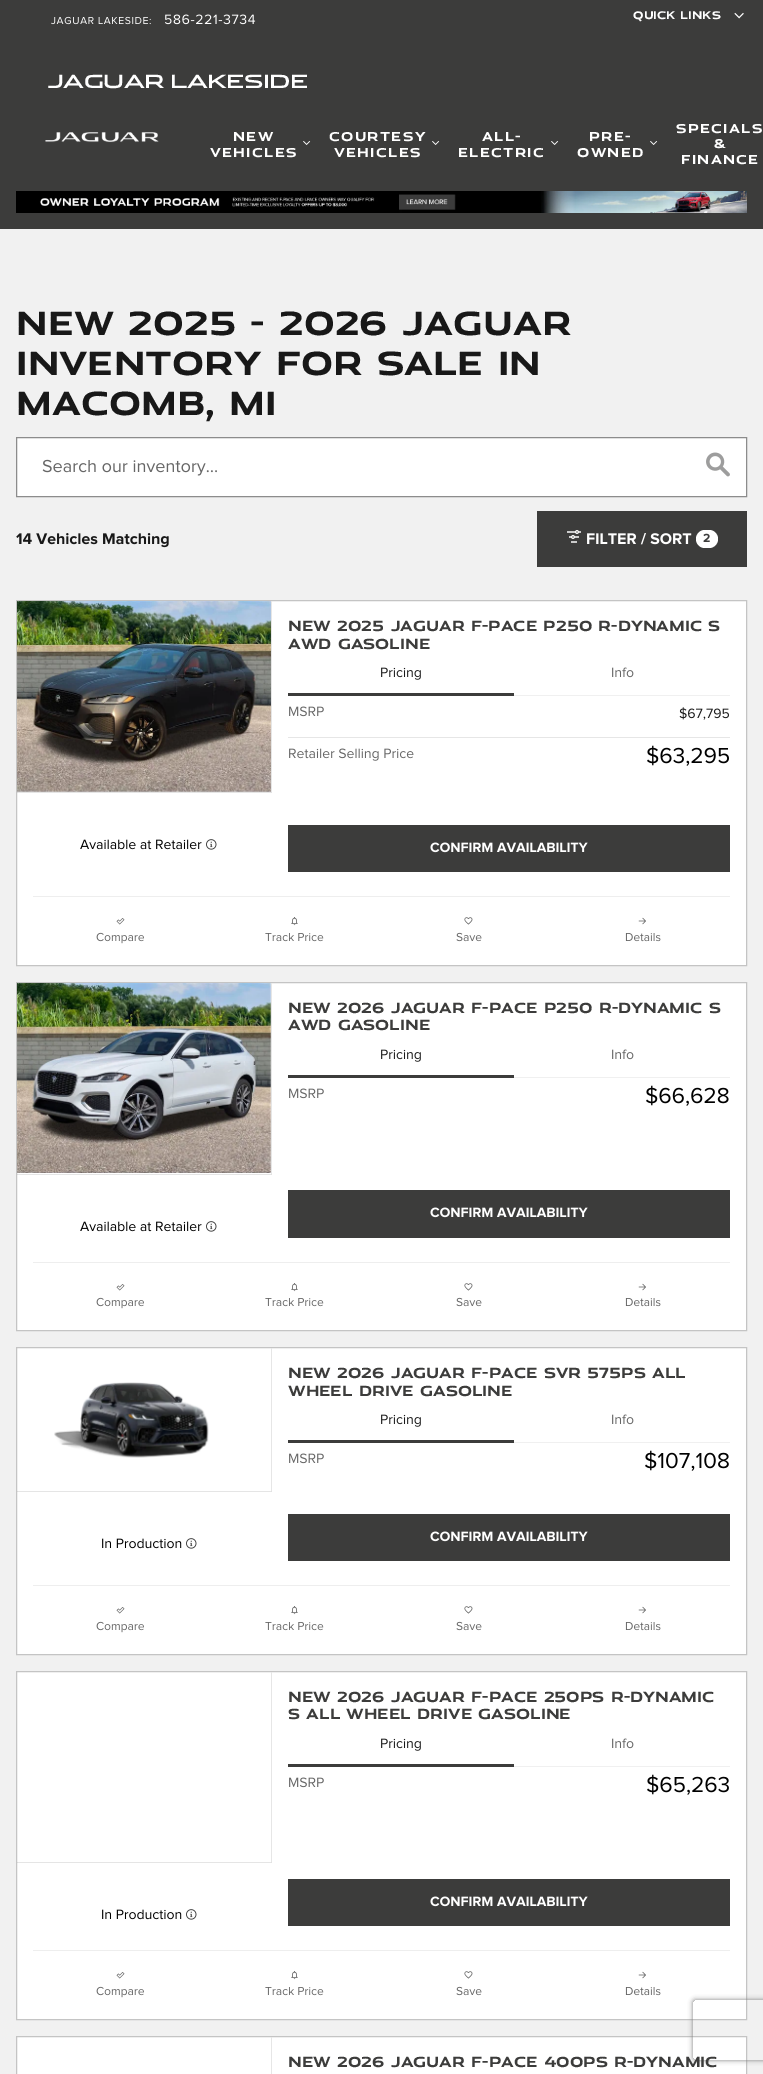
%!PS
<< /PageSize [763 2074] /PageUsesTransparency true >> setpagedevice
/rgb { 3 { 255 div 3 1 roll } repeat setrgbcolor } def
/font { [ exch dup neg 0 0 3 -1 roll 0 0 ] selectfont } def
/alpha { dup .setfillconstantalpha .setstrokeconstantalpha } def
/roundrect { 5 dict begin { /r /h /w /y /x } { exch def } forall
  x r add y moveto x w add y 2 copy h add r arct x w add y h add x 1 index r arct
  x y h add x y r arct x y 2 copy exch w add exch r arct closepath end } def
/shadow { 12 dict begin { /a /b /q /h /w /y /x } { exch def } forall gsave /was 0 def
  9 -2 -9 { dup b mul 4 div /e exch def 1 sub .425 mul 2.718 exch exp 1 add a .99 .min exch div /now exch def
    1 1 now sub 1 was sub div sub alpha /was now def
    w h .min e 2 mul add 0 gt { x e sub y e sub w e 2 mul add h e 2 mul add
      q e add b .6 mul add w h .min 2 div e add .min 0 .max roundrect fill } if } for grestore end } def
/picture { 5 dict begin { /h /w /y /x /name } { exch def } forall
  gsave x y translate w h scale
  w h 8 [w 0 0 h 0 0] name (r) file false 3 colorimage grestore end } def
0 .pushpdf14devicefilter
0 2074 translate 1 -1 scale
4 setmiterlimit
241 241 241 rgb
0 0 763 2074 rectfill
60 60 59 rgb
0 0 763 229 rectfill
(img/1.rgb) 16 191 731 22 picture
(img/2.rgb) 734 12 10 7 picture
(img/3.rgb) 51 16 97 9 picture
(img/4.rgb) 149 18 2 7 picture
(img/5.rgb) 165 14 91 11 picture
(img/6.rgb) 45 132 114 11 picture
(img/7.rgb) 303 141 8 4 picture
(img/7.rgb) 432 141 8 4 picture
(img/7.rgb) 551 141 8 4 picture
(img/7.rgb) 650 141 8 4 picture
255 255 255 rgb
16.5 437.5 moveto 746.5 437.5 lineto 746.5 496.5 lineto 16.5 496.5 lineto closepath gsave fill grestore
140 140 140 rgb
stroke
(img/8.rgb) 42 459 175 17 picture
(img/9.rgb) 706 452 24 25 picture
(img/10.rgb) 16 533 153 15 picture
60 60 59 rgb
537 511 210 56 rectfill
(img/11.rgb) 567 530 14 13 picture
(img/12.rgb) 587 533 105 12 picture
255 255 255 rgb
696 530 22 18 9 roundrect fill
(img/13.rgb) 703 533 7 9 picture
16.5 600.5 moveto 746.5 600.5 lineto 746.5 965.5 lineto 16.5 965.5 lineto closepath gsave fill grestore
196 196 196 rgb
stroke
230 230 230 rgb
272 601 moveto 272 793 lineto 271 792 lineto 271 601 lineto closepath fill
0.1 alpha
0 0 0 rgb
272 793 moveto 17 793 lineto 17 792 lineto 271 792 lineto closepath fill
1 alpha
(img/14.rgb) 17 601 254 191 picture
(img/15.rgb) 80 839 122 11 picture
(img/16.rgb) 206 839 11 11 picture
240 240 240 rgb
514 695 216 1 rectfill
60 60 59 rgb
288 693 226 3 rectfill
(img/17.rgb) 381 667 40 13 picture
(img/18.rgb) 612 667 22 11 picture
(img/19.rgb) 289 706 35 11 picture
(img/20.rgb) 679 707 50 13 picture
230 230 230 rgb
288 737 442 1 rectfill
(img/21.rgb) 289 748 125 13 picture
(img/22.rgb) 647 745 82 21 picture
60 60 59 rgb
288 825 442 47 rectfill
(img/23.rgb) 430 842 158 11 picture
238 238 238 rgb
33 896 697 1 rectfill
(img/24.rgb) 116 918 9 7 picture
(img/25.rgb) 96 932 48 12 picture
(img/26.rgb) 291 917 7 9 picture
(img/27.rgb) 265 933 59 9 picture
(img/28.rgb) 464 917 9 8 picture
(img/29.rgb) 456 932 26 10 picture
(img/30.rgb) 638 917 8 8 picture
(img/31.rgb) 625 933 36 9 picture
255 255 255 rgb
16.5 982.5 moveto 746.5 982.5 lineto 746.5 1330.5 lineto 16.5 1330.5 lineto closepath gsave fill grestore
196 196 196 rgb
stroke
230 230 230 rgb
272 983 moveto 272 1175 lineto 271 1174 lineto 271 983 lineto closepath fill
0.1 alpha
0 0 0 rgb
272 1175 moveto 17 1175 lineto 17 1174 lineto 271 1174 lineto closepath fill
1 alpha
(img/32.rgb) 17 983 254 190 picture
(img/15.rgb) 80 1221 122 11 picture
(img/16.rgb) 206 1221 11 11 picture
240 240 240 rgb
514 1077 216 1 rectfill
60 60 59 rgb
288 1075 226 3 rectfill
(img/17.rgb) 381 1049 40 13 picture
(img/18.rgb) 612 1049 22 11 picture
(img/19.rgb) 289 1088 35 11 picture
(img/33.rgb) 646 1085 83 21 picture
288 1190 442 48 rectfill
(img/23.rgb) 430 1207 158 11 picture
238 238 238 rgb
33 1262 697 1 rectfill
(img/24.rgb) 116 1284 9 7 picture
(img/25.rgb) 96 1297 48 12 picture
(img/26.rgb) 291 1283 7 9 picture
(img/27.rgb) 265 1298 59 9 picture
(img/28.rgb) 464 1283 9 8 picture
(img/29.rgb) 456 1297 26 10 picture
(img/30.rgb) 638 1283 8 8 picture
(img/31.rgb) 625 1298 36 9 picture
255 255 255 rgb
16.5 1347.5 moveto 746.5 1347.5 lineto 746.5 1654.5 lineto 16.5 1654.5 lineto closepath gsave fill grestore
196 196 196 rgb
stroke
230 230 230 rgb
272 1348 moveto 272 1492 lineto 271 1491 lineto 271 1348 lineto closepath fill
0.1 alpha
0 0 0 rgb
272 1492 moveto 17 1492 lineto 17 1491 lineto 271 1491 lineto closepath fill
1 alpha
(img/34.rgb) 54 1382 155 76 picture
(img/35.rgb) 102 1538 80 11 picture
(img/16.rgb) 186 1538 11 11 picture
240 240 240 rgb
514 1442 216 1 rectfill
60 60 59 rgb
288 1440 226 3 rectfill
(img/17.rgb) 381 1414 40 13 picture
(img/18.rgb) 612 1414 22 11 picture
(img/19.rgb) 289 1453 35 11 picture
(img/36.rgb) 645 1450 84 21 picture
288 1514 442 47 rectfill
(img/23.rgb) 430 1531 158 11 picture
238 238 238 rgb
33 1585 697 1 rectfill
(img/24.rgb) 116 1607 9 7 picture
(img/25.rgb) 96 1621 48 12 picture
(img/26.rgb) 291 1606 7 9 picture
(img/27.rgb) 265 1622 59 9 picture
(img/28.rgb) 464 1606 9 8 picture
(img/29.rgb) 456 1621 26 10 picture
(img/30.rgb) 638 1606 8 8 picture
(img/31.rgb) 625 1622 36 9 picture
255 255 255 rgb
16.5 1671.5 moveto 746.5 1671.5 lineto 746.5 2019.5 lineto 16.5 2019.5 lineto closepath gsave fill grestore
196 196 196 rgb
stroke
230 230 230 rgb
272 1672 moveto 272 1863 lineto 271 1862 lineto 271 1672 lineto closepath fill
0.1 alpha
0 0 0 rgb
272 1863 moveto 17 1863 lineto 17 1862 lineto 271 1862 lineto closepath fill
1 alpha
(img/35.rgb) 102 1909 80 11 picture
(img/16.rgb) 186 1909 11 11 picture
240 240 240 rgb
514 1766 216 1 rectfill
60 60 59 rgb
288 1764 226 3 rectfill
(img/17.rgb) 381 1738 40 13 picture
(img/18.rgb) 612 1738 22 11 picture
(img/19.rgb) 289 1777 35 11 picture
(img/37.rgb) 647 1774 82 21 picture
288 1879 442 47 rectfill
(img/23.rgb) 430 1896 158 11 picture
238 238 238 rgb
33 1950 697 1 rectfill
(img/24.rgb) 116 1972 9 7 picture
(img/25.rgb) 96 1986 48 12 picture
(img/26.rgb) 291 1971 7 9 picture
(img/27.rgb) 265 1987 59 9 picture
(img/28.rgb) 464 1971 9 8 picture
(img/29.rgb) 456 1986 26 10 picture
(img/30.rgb) 638 1971 8 8 picture
(img/31.rgb) 625 1987 36 9 picture
255 255 255 rgb
16.5 2036.5 moveto 746.5 2036.5 lineto 746.5 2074.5 lineto 16.5 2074.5 lineto closepath gsave fill grestore
196 196 196 rgb
stroke
230 230 230 rgb
272 2037 moveto 272 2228 lineto 271 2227 lineto 271 2037 lineto closepath fill
gsave
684 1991 moveto 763 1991 lineto 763 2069 lineto 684 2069 lineto closepath 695 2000 moveto 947 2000 lineto 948 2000 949 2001 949 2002 curveto 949 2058 lineto 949 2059 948 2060 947 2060 curveto 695 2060 lineto 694 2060 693 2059 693 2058 curveto 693 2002 lineto 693 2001 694 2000 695 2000 curveto closepath eoclip newpath
128 128 128 rgb
693 2000 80 60 2 2.5 1 shadow
grestore
/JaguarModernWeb-Bold 10.5 font
255 255 255 rgb
633 19 moveto (QUICK LINKS) show
/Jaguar-Bold 17.5 font
47 88 moveto (JAGUAR LAKESIDE) show
/JaguarModernWeb-Bold 12.25 font
233 141 moveto 1.25 0 (NEW) ashow
210 157 moveto 1.25 0 (VEHICLES) ashow
329 141 moveto 1.25 0 (COURTESY) ashow
334 157 moveto 1.25 0 (VEHICLES) ashow
482 141 moveto 1.25 0 (ALL-) ashow
458 157 moveto 1.25 0 (ELECTRIC) ashow
589 141 moveto 1.25 0 (PRE-) ashow
577 157 moveto 1.25 0 (OWNED) ashow
676 133 moveto 1.25 0 (SPECIALS) ashow
714 148 moveto 1.25 0 (&) ashow
681 164 moveto 1.25 0 (FINANCE) ashow
/JaguarModernWeb-Bold 32 font
24 24 24 rgb
[
  [(New 2025 - 2026 Jaguar) 16 335]
  [(Inventory for Sale in) 16 375]
  [(Macomb, MI) 16 415]
] { aload pop moveto show } forall
/JaguarModernWeb-Bold 14 font
60 60 59 rgb
[
  [(New 2025 Jaguar F-PACE P250 R-Dynamic S) 288 631]
  [(AWD Gasoline) 288 649]
  [(New 2026 Jaguar F-PACE P250 R-Dynamic S) 288 1013]
  [(AWD Gasoline) 288 1030]
  [(New 2026 Jaguar F-PACE SVR 575PS All) 288 1378]
  [(Wheel Drive Gasoline) 288 1396]
  [(New 2026 Jaguar F-PACE 250PS R-Dynamic) 288 1702]
  [(S All Wheel Drive Gasoline) 288 1719]
  [(New 2026 Jaguar F-PACE 400PS R-Dynamic) 288 2067]
] { aload pop moveto show } forall
.poppdf14devicefilter showpage
